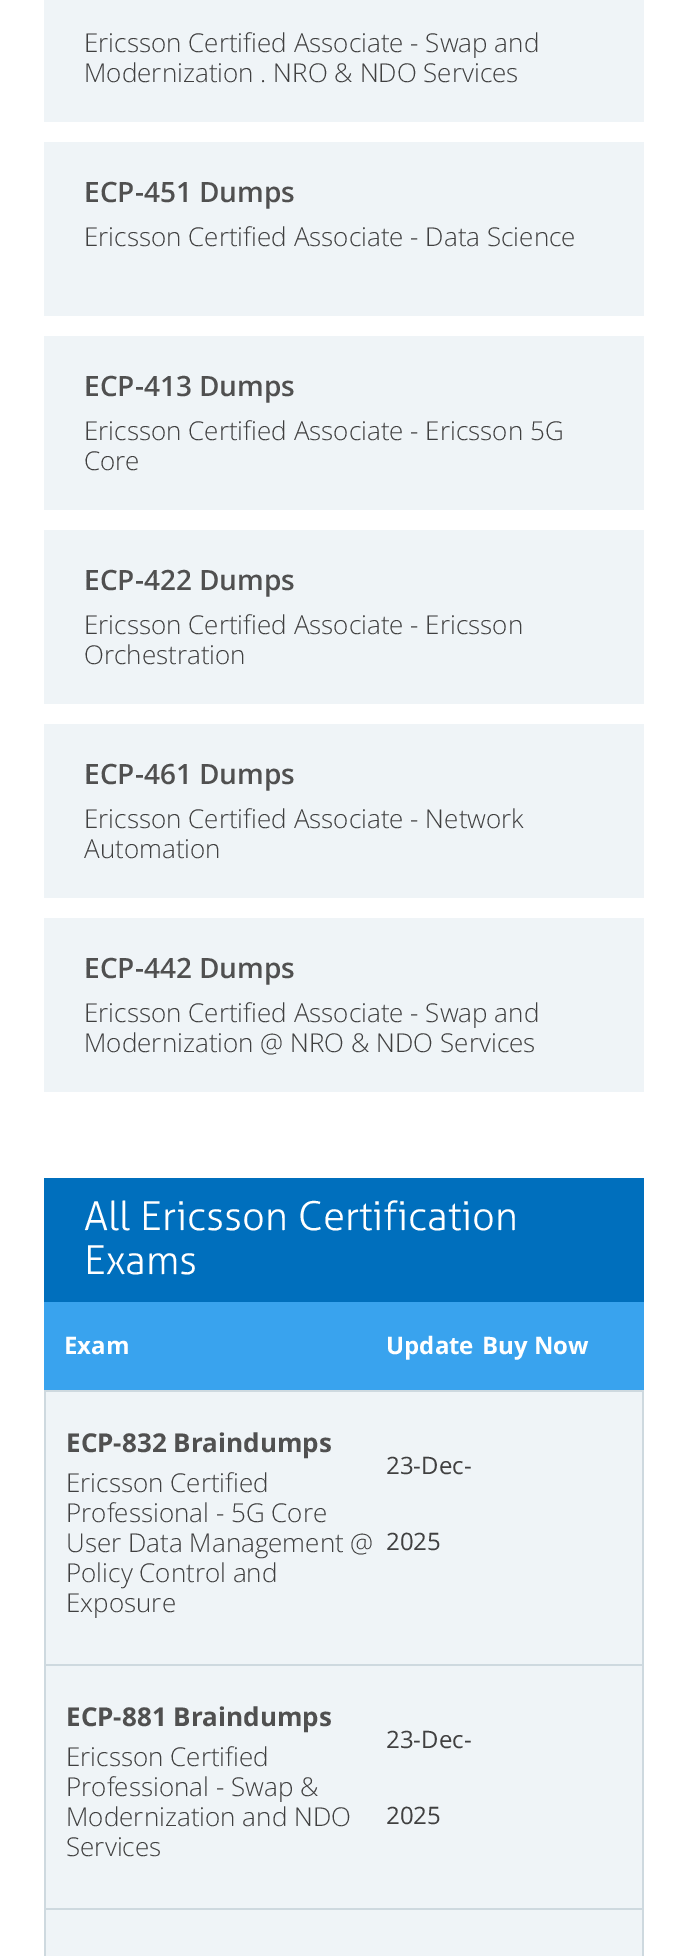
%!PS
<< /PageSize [688 1956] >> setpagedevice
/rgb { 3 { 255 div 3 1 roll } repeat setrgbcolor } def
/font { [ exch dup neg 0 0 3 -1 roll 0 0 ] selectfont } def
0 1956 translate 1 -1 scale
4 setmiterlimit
255 255 255 rgb
0 0 688 1956 rectfill
[
  [44 0 600 122 239 244 247]
  [44 142 600 174 239 244 247]
  [44 336 600 174 239 244 247]
  [44 530 600 174 239 244 247]
  [44 724 600 174 239 244 247]
  [44 918 600 174 239 244 247]
  [44 1178 600 124 0 111 189]
  [44 1302 600 88 57 163 238]
  [44 1390 600 2 206 217 223]
  [46 1392 596 272 239 244 247]
  [642 1392 2 564 206 217 223]
  [44 1664 600 2 206 217 223]
  [44 1392 2 274 206 217 223]
  [46 1666 596 242 239 244 247]
  [44 1908 600 2 206 217 223]
  [44 1666 2 290 206 217 223]
  [46 1910 596 46 239 244 247]
] { aload pop rgb rectfill } forall
/OpenSans-Light 26 font
64 64 64 rgb
84 52 moveto (Ericsson Certified Associate - Swap and) show
84 82 moveto (Modernization . NRO & NDO Services) show
/OpenSans-SemiBold 28 font
80 80 80 rgb
84 202 moveto (ECP-451 Dumps) show
/OpenSans-Light 26 font
64 64 64 rgb
84 246 moveto (Ericsson Certified Associate - Data Science) show
/OpenSans-SemiBold 28 font
80 80 80 rgb
84 396 moveto (ECP-413 Dumps) show
/OpenSans-Light 26 font
64 64 64 rgb
84 440 moveto (Ericsson Certified Associate - Ericsson 5G) show
84 470 moveto (Core) show
/OpenSans-SemiBold 28 font
80 80 80 rgb
84 590 moveto (ECP-422 Dumps) show
/OpenSans-Light 26 font
64 64 64 rgb
84 634 moveto (Ericsson Certified Associate - Ericsson) show
84 664 moveto (Orchestration) show
/OpenSans-SemiBold 28 font
80 80 80 rgb
84 784 moveto (ECP-461 Dumps) show
/OpenSans-Light 26 font
64 64 64 rgb
84 828 moveto (Ericsson Certified Associate - Network) show
84 858 moveto (Automation) show
/OpenSans-SemiBold 28 font
80 80 80 rgb
84 978 moveto (ECP-442 Dumps) show
/OpenSans-Light 26 font
64 64 64 rgb
84 1022 moveto (Ericsson Certified Associate - Swap and) show
84 1052 moveto (Modernization @ NRO & NDO Services) show
/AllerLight-Light 40 font
255 255 255 rgb
84 1230 moveto (All Ericsson Certification) show
84 1274 moveto (Exams) show
/OpenSans-Bold 24 font
[
  [(Exam) 64 1354]
  [(Update) 386 1354]
  [(Buy Now) 482 1354]
] { aload pop moveto show } forall
/OpenSans-Bold 26 font
80 80 80 rgb
66 1452 moveto (ECP-832 Braindumps) show
/OpenSans-Light 26 font
64 64 64 rgb
[
  [(Ericsson Certified) 66 1492]
  [(Professional - 5G Core) 66 1522]
  [(User Data Management @) 66 1552]
  [(Policy Control and) 66 1582]
  [(Exposure) 66 1612]
] { aload pop moveto show } forall
/OpenSans-Regular 24 font
386 1474 moveto (23-Dec-) show
386 1550 moveto (2025) show
/OpenSans-Bold 26 font
80 80 80 rgb
66 1726 moveto (ECP-881 Braindumps) show
/OpenSans-Light 26 font
64 64 64 rgb
[
  [(Ericsson Certified) 66 1766]
  [(Professional - Swap &) 66 1796]
  [(Modernization and NDO) 66 1826]
  [(Services) 66 1856]
] { aload pop moveto show } forall
/OpenSans-Regular 24 font
386 1748 moveto (23-Dec-) show
386 1824 moveto (2025) show
showpage
